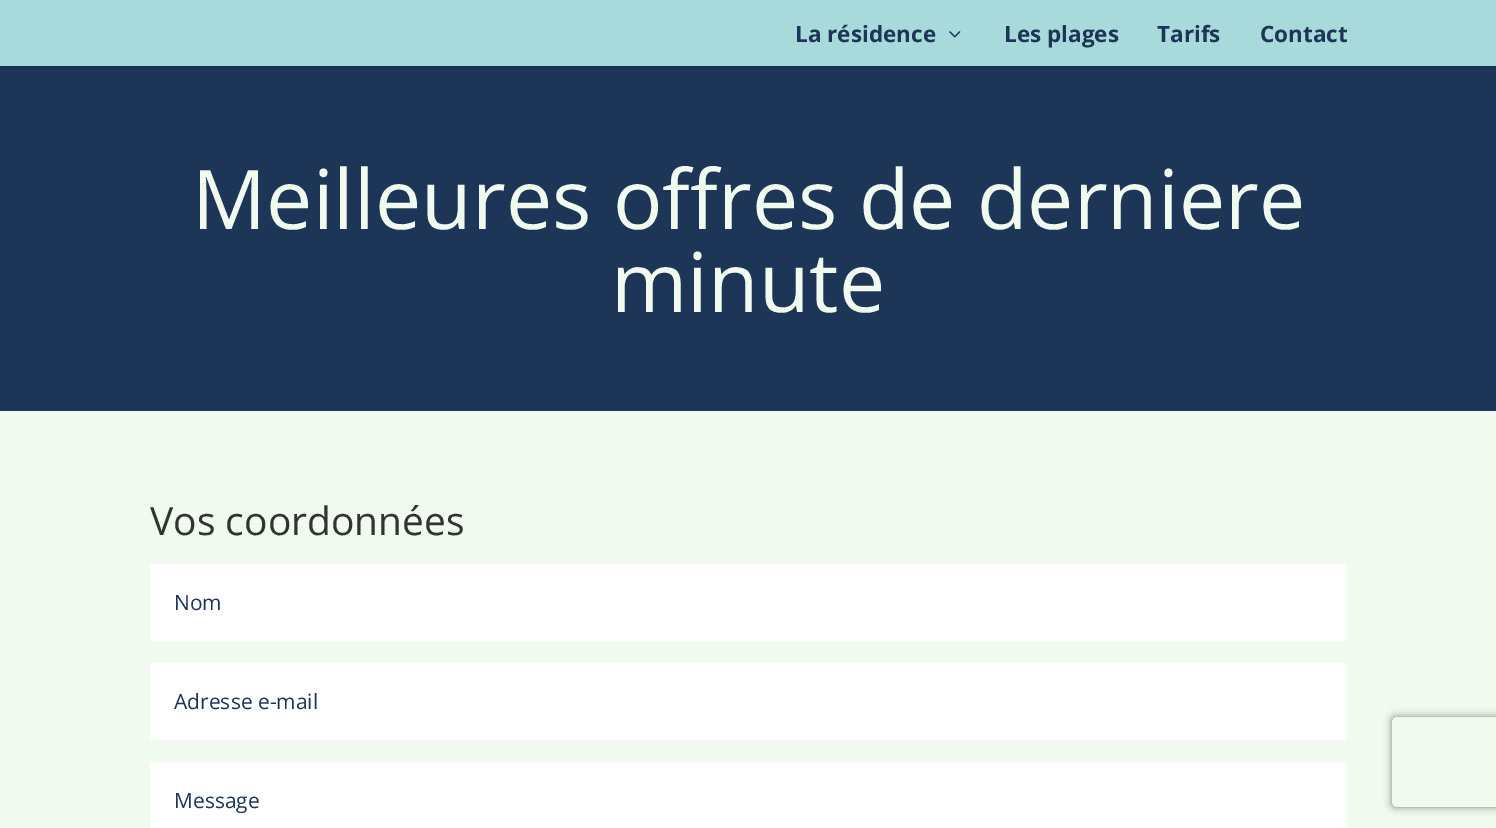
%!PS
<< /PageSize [1496 828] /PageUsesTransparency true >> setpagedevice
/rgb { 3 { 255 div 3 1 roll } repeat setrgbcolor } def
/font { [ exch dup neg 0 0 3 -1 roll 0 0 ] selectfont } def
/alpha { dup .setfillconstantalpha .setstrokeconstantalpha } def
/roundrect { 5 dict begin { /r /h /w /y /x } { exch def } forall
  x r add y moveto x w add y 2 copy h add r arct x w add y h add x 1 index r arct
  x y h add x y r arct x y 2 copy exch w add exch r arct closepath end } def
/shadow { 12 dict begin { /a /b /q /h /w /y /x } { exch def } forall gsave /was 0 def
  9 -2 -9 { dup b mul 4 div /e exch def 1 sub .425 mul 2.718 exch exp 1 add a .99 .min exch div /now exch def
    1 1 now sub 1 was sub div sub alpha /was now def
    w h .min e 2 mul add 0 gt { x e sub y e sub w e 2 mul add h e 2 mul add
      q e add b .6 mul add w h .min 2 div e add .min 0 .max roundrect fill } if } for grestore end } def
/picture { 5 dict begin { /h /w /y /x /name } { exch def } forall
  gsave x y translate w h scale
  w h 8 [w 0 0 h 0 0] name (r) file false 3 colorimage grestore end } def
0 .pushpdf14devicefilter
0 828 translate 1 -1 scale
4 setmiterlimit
29 53 87 rgb
0 0 1496 828 rectfill
26 48 78 rgb
0 66 1496 2 rectfill
168 218 220 rgb
0 0 1496 66 rectfill
(img/1.rgb) 949 31 12 7 picture
[
  [0 411 1496 417 241 250 238]
  [150 564 1197 77 255 255 255]
  [150 663 1197 77 255 255 255]
  [150 762 1197 66 255 255 255]
] { aload pop rgb rectfill } forall
gsave
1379 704 moveto 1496 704 lineto 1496 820 lineto 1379 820 lineto closepath 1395 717 moveto 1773 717 lineto 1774.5 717 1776 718.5 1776 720 curveto 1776 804 lineto 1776 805.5 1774.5 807 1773 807 curveto 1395 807 lineto 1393.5 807 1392 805.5 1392 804 curveto 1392 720 lineto 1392 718.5 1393.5 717 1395 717 curveto closepath eoclip newpath
128 128 128 rgb
1392 717 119 90 3 4 1 shadow
grestore
/OpenSans-Bold 22.5 font
29 53 87 rgb
[
  [(La résidence) 795 42]
  [(Les plages) 1004 42]
  [(Tarifs) 1157 42]
  [(Contact) 1260 42]
] { aload pop moveto show } forall
/OpenSans-Regular 82.5 font
241 250 238 rgb
192 229 moveto (Meilleures offres de derniere) show
611 312 moveto (minute) show
/OpenSans-Regular 39 font
51 51 51 rgb
150 535 moveto (Vos coordonnées) show
/OpenSans-Regular 21 font
29 53 87 rgb
[
  [(Nom) 174 610]
  [(Adresse e-mail) 174 709]
  [(Message) 174 808]
] { aload pop moveto show } forall
.poppdf14devicefilter showpage
